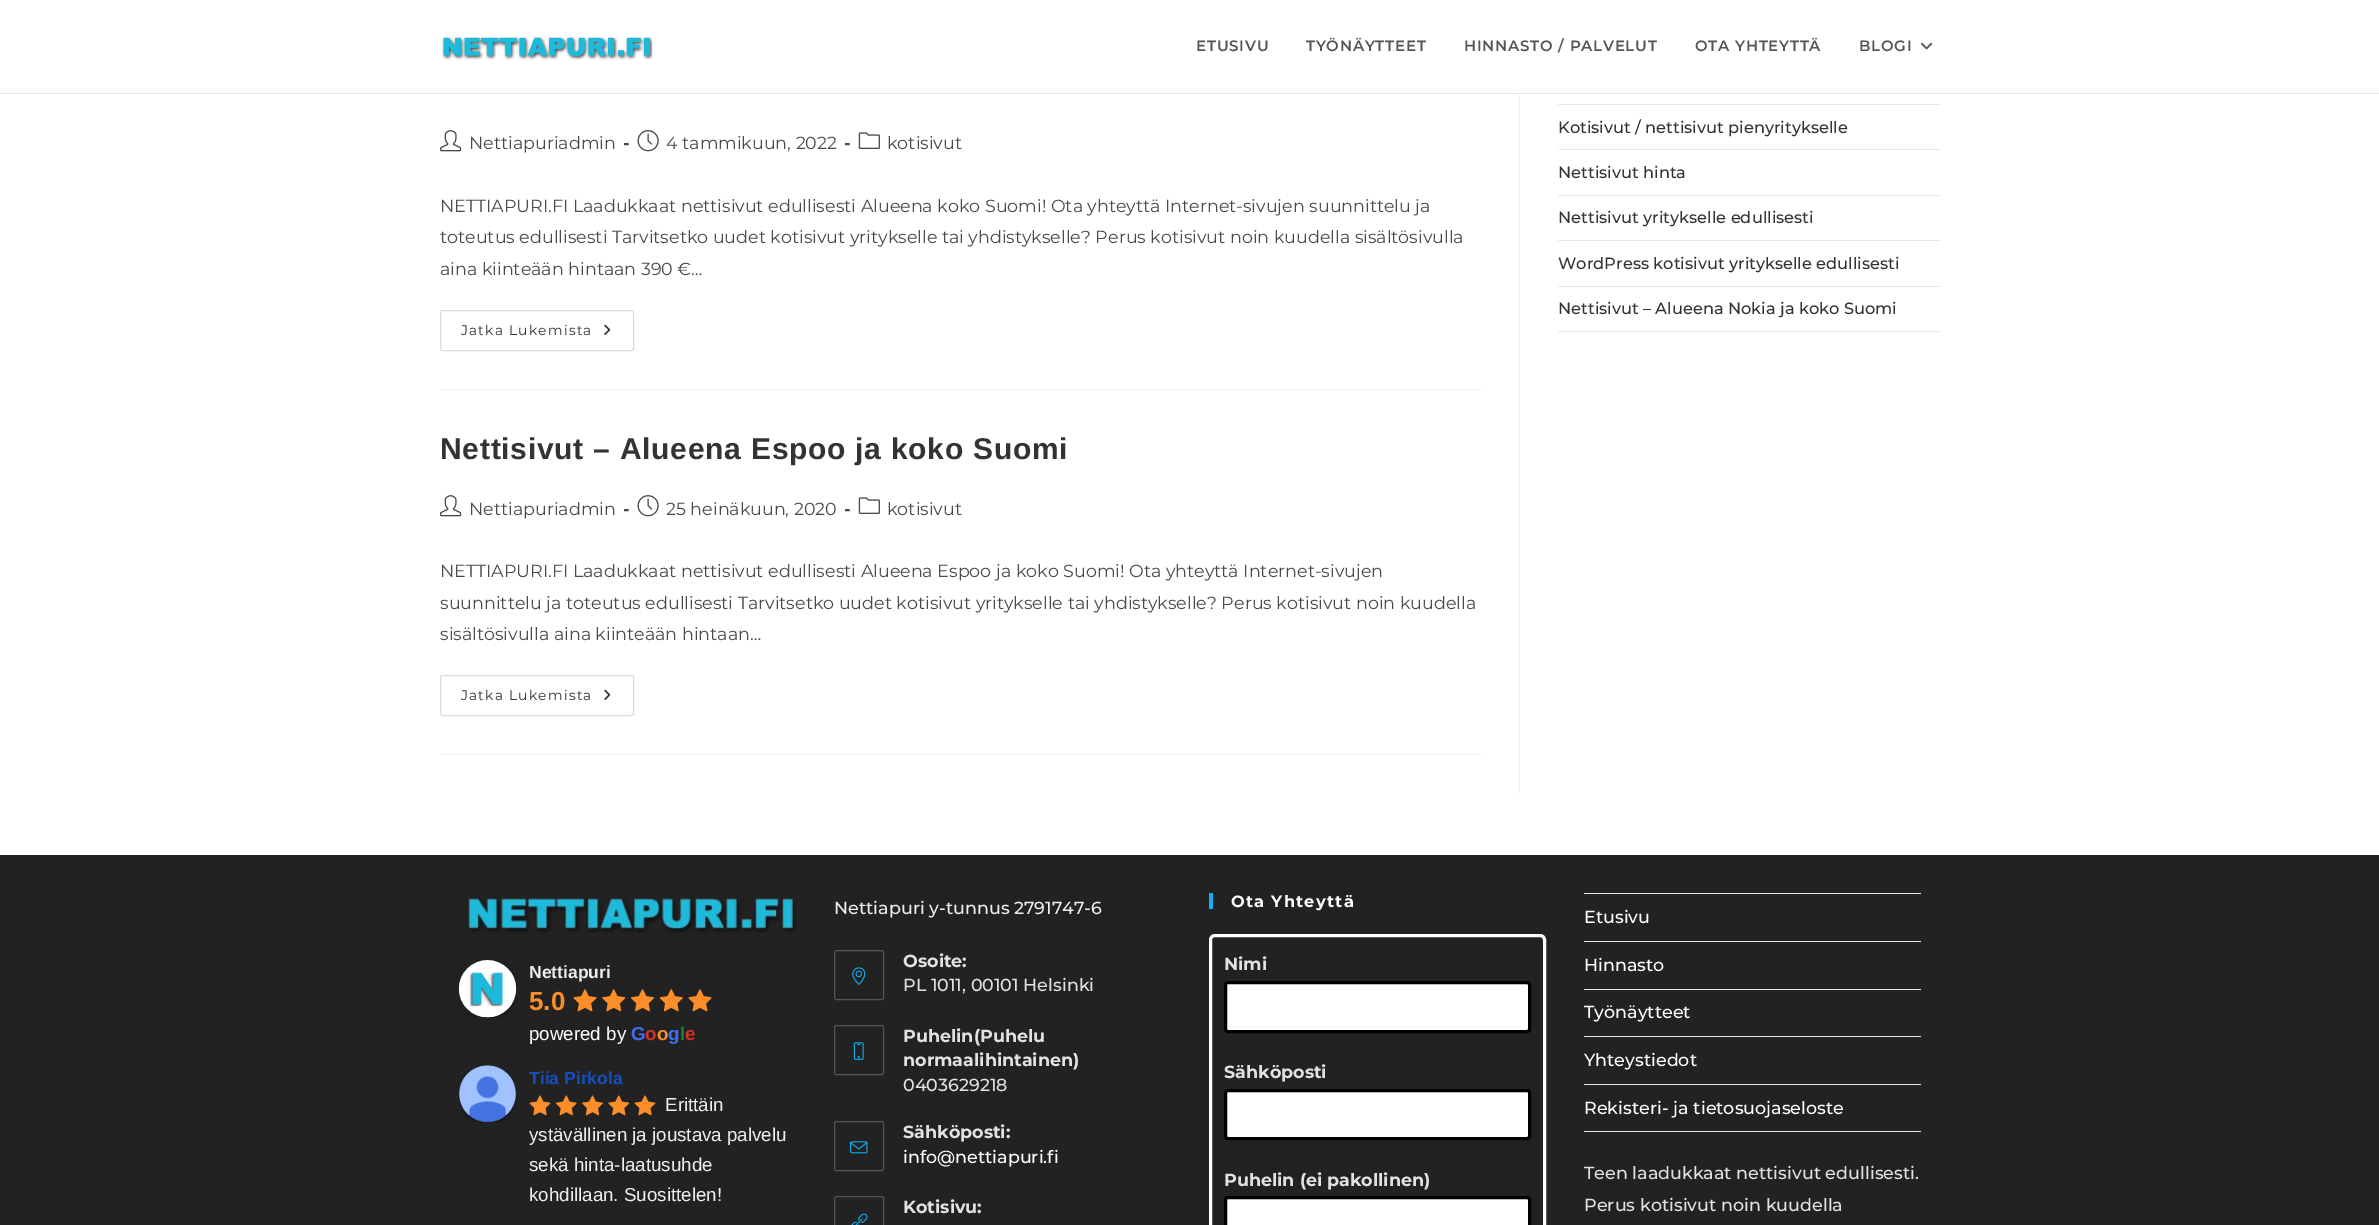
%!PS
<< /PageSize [2379 1225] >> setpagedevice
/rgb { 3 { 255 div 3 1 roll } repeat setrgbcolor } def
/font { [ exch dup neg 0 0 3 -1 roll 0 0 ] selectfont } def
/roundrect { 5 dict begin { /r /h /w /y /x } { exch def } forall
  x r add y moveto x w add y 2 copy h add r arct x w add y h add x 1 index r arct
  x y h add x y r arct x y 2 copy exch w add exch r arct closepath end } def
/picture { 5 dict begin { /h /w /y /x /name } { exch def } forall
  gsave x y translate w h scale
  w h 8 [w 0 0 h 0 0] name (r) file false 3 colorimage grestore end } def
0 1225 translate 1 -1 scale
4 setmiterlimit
255 255 255 rgb
0 0 2379 1225 rectfill
230 230 230 rgb
0 93 2379 1 rectfill
(img/1.rgb) 442 37 211 23 picture
(img/2.rgb) 1921 42 12 8 picture
241 241 241 rgb
1519 94 1 699 rectfill
440 389 1041 1 rectfill
(img/3.rgb) 440 130 22 22 picture
(img/4.rgb) 637 130 22 22 picture
(img/5.rgb) 858 132 22 17 picture
221 221 221 rgb
440.5 310.5 193 40 2 roundrect stroke
(img/6.rgb) 604 324 7 11 picture
241 241 241 rgb
440 754 1041 1 rectfill
(img/3.rgb) 440 495 22 22 picture
(img/4.rgb) 637 495 22 22 picture
(img/5.rgb) 858 497 22 17 picture
221 221 221 rgb
440.5 675.5 193 40 2 roundrect stroke
(img/6.rgb) 604 689 7 11 picture
[
  [1558 104 382 1 233 233 233]
  [1558 149 382 1 233 233 233]
  [1558 195 382 1 233 233 233]
  [1558 240 382 1 233 233 233]
  [1558 286 382 1 233 233 233]
  [1558 331 382 1 233 233 233]
  [0 855 2379 370 34 34 34]
] { aload pop rgb rectfill } forall
(img/7.rgb) 468 898 328 35 picture
(img/8.rgb) 458 960 59 58 picture
(img/9.rgb) 573 989 24 23 picture
(img/10.rgb) 602 989 24 23 picture
(img/11.rgb) 630 989 25 23 picture
(img/12.rgb) 659 989 24 23 picture
(img/9.rgb) 688 989 24 23 picture
(img/13.rgb) 458 1065 59 58 picture
(img/14.rgb) 529 1095 22 21 picture
(img/15.rgb) 555 1095 22 21 picture
(img/16.rgb) 582 1095 21 21 picture
(img/17.rgb) 608 1095 22 21 picture
(img/14.rgb) 634 1095 22 21 picture
85 85 85 rgb
834.5 950.5 49 49 2 roundrect stroke
(img/18.rgb) 852 967 14 18 picture
834.5 1025.5 49 49 2 roundrect stroke
(img/19.rgb) 853 1042 11 18 picture
834.5 1121.5 49 49 2 roundrect stroke
(img/20.rgb) 850 1141 18 13 picture
834.5 1196.5 49 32 2 roundrect stroke
(img/21.rgb) 851 1213 17 12 picture
19 175 240 rgb
1209 893 4 16 rectfill
255 255 255 rgb
3 setlinewidth
1210.5 935.5 334 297 4.5 roundrect stroke
1225.5 982.5 304 49 2.5 roundrect gsave fill grestore
0 0 0 rgb
stroke
255 255 255 rgb
1225.5 1090.5 304 48 2.5 roundrect gsave fill grestore
0 0 0 rgb
stroke
255 255 255 rgb
1225.5 1197.5 304 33 2.5 roundrect gsave fill grestore
0 0 0 rgb
stroke
[
  [1584 893 337 1 233 233 233]
  [1584 941 337 1 233 233 233]
  [1584 989 337 1 233 233 233]
  [1584 1036 337 1 233 233 233]
  [1584 1084 337 1 233 233 233]
  [1584 1131 337 1 233 233 233]
] { aload pop rgb rectfill } forall
/Montserrat-SemiBold 15 font
85 85 85 rgb
1196 51 moveto 0.75 0 (ETUSIVU) ashow
1306 51 moveto 0.75 0 (TYÖNÄYTTEET) ashow
1464 51 moveto 0.75 0 (HINNASTO / PALVELUT) ashow
1695 51 moveto 0.75 0 (OTA YHTEYTTÄ) ashow
1859 51 moveto 0.75 0 (BLOGI) ashow
/Montserrat-Regular 17.5 font
74 74 74 rgb
469 149 moveto (Nettiapuriadmin) show
/Montserrat-Bold 17.5 font
623 149 moveto (-) show
/Montserrat-Regular 17.5 font
666 149 moveto (4 tammikuun, 2022) show
/Montserrat-Bold 17.5 font
844 149 moveto (-) show
/Montserrat-Regular 17.5 font
[
  [(kotisivut) 887 149]
  [(NETTIAPURI.FI Laadukkaat nettisivut edullisesti Alueena koko Suomi! Ota yhteyttä Internet-sivujen suunnittelu ja) 440 212]
  [(toteutus edullisesti Tarvitsetko uudet kotisivut yritykselle tai yhdistykselle? Perus kotisivut noin kuudella sisältösivulla) 440 243]
  [(aina kiinteään hintaan 390 €…) 440 275]
] { aload pop moveto show } forall
/Montserrat-Regular 13.75 font
51 51 51 rgb
461 335 moveto 1.25 0 (Jatka Lukemista) ashow
/LiberationSans-Bold 30 font
440 459 moveto 0.75 0 (Nettisivut – Alueena Espoo ja koko Suomi) ashow
/Montserrat-Regular 17.5 font
74 74 74 rgb
469 515 moveto (Nettiapuriadmin) show
/Montserrat-Bold 17.5 font
623 515 moveto (-) show
/Montserrat-Regular 17.5 font
666 515 moveto (25 heinäkuun, 2020) show
/Montserrat-Bold 17.5 font
844 515 moveto (-) show
/Montserrat-Regular 17.5 font
[
  [(kotisivut) 887 515]
  [(NETTIAPURI.FI Laadukkaat nettisivut edullisesti Alueena Espoo ja koko Suomi! Ota yhteyttä Internet-sivujen) 440 577]
  [(suunnittelu ja toteutus edullisesti Tarvitsetko uudet kotisivut yritykselle tai yhdistykselle? Perus kotisivut noin kuudella) 440 609]
  [(sisältösivulla aina kiinteään hintaan…) 440 640]
] { aload pop moveto show } forall
/Montserrat-Regular 13.75 font
51 51 51 rgb
461 700 moveto 1.25 0 (Jatka Lukemista) ashow
/Montserrat-Medium 16.25 font
[
  [(Kotisivut / nettisivut pienyritykselle) 1558 133]
  [(Nettisivut hinta) 1558 178]
  [(Nettisivut yritykselle edullisesti) 1558 223]
  [(WordPress kotisivut yritykselle edullisesti) 1558 269]
  [(Nettisivut – Alueena Nokia ja koko Suomi) 1558 314]
] { aload pop moveto show } forall
/LiberationSans-Bold 17.5 font
238 238 238 rgb
529 978 moveto (Nettiapuri) show
/LiberationSans-Bold 26 font
251 142 40 rgb
529 1010 moveto (5.0) show
/LiberationSans-Regular 18.75 font
255 255 255 rgb
529 1040 moveto (powered by) show
/LiberationSans-Bold 18.75 font
60 109 240 rgb
631 1040 moveto (G) show
217 48 37 rgb
645 1040 moveto (o) show
251 142 40 rgb
657 1040 moveto (o) show
60 109 240 rgb
668 1040 moveto (g) show
24 128 56 rgb
680 1040 moveto (l) show
217 48 37 rgb
685 1040 moveto (e) show
/LiberationSans-Bold 17.5 font
21 79 193 rgb
529 1084 moveto (Tiia Pirkola) show
/LiberationSans-Regular 18.75 font
238 238 238 rgb
[
  [(Erittäin) 665 1111]
  [(ystävällinen ja joustava palvelu) 529 1141]
  [(sekä hinta-laatusuhde) 529 1171]
  [(kohdillaan. Suosittelen!) 529 1201]
] { aload pop moveto show } forall
/Montserrat-Medium 17.5 font
834 914 moveto (Nettiapuri y-tunnus 2791747-6) show
/Montserrat-Bold 17.5 font
226 226 226 rgb
903 967 moveto (Osoite:) show
/Montserrat-Medium 17.5 font
903 991 moveto (PL 1011, 00101 Helsinki) show
/Montserrat-Bold 17.5 font
903 1042 moveto (Puhelin\(Puhelu) show
903 1066 moveto (normaalihintainen\)) show
/Montserrat-Medium 17.5 font
903 1091 moveto (0403629218) show
/Montserrat-Bold 17.5 font
903 1138 moveto (Sähköposti:) show
/Montserrat-Medium 17.5 font
255 255 255 rgb
903 1163 moveto (info@nettiapuri.fi) show
/Montserrat-Bold 17.5 font
226 226 226 rgb
903 1213 moveto (Kotisivu:) show
/Montserrat-Bold 16.25 font
255 255 255 rgb
1231 907 moveto 1.25 0 (Ota Yhteyttä) ashow
/Montserrat-Bold 17.5 font
226 226 226 rgb
[
  [(Nimi) 1224 970]
  [(Sähköposti) 1224 1078]
  [(Puhelin \(ei pakollinen\)) 1224 1186]
] { aload pop moveto show } forall
/Montserrat-Medium 17.5 font
255 255 255 rgb
[
  [(Etusivu) 1584 923]
  [(Hinnasto) 1584 971]
  [(Työnäytteet) 1584 1018]
  [(Yhteystiedot) 1584 1066]
  [(Rekisteri- ja tietosuojaseloste) 1584 1114]
] { aload pop moveto show } forall
226 226 226 rgb
1584 1179 moveto (Teen laadukkaat nettisivut edullisesti.) show
1584 1211 moveto (Perus kotisivut noin kuudella) show
showpage
